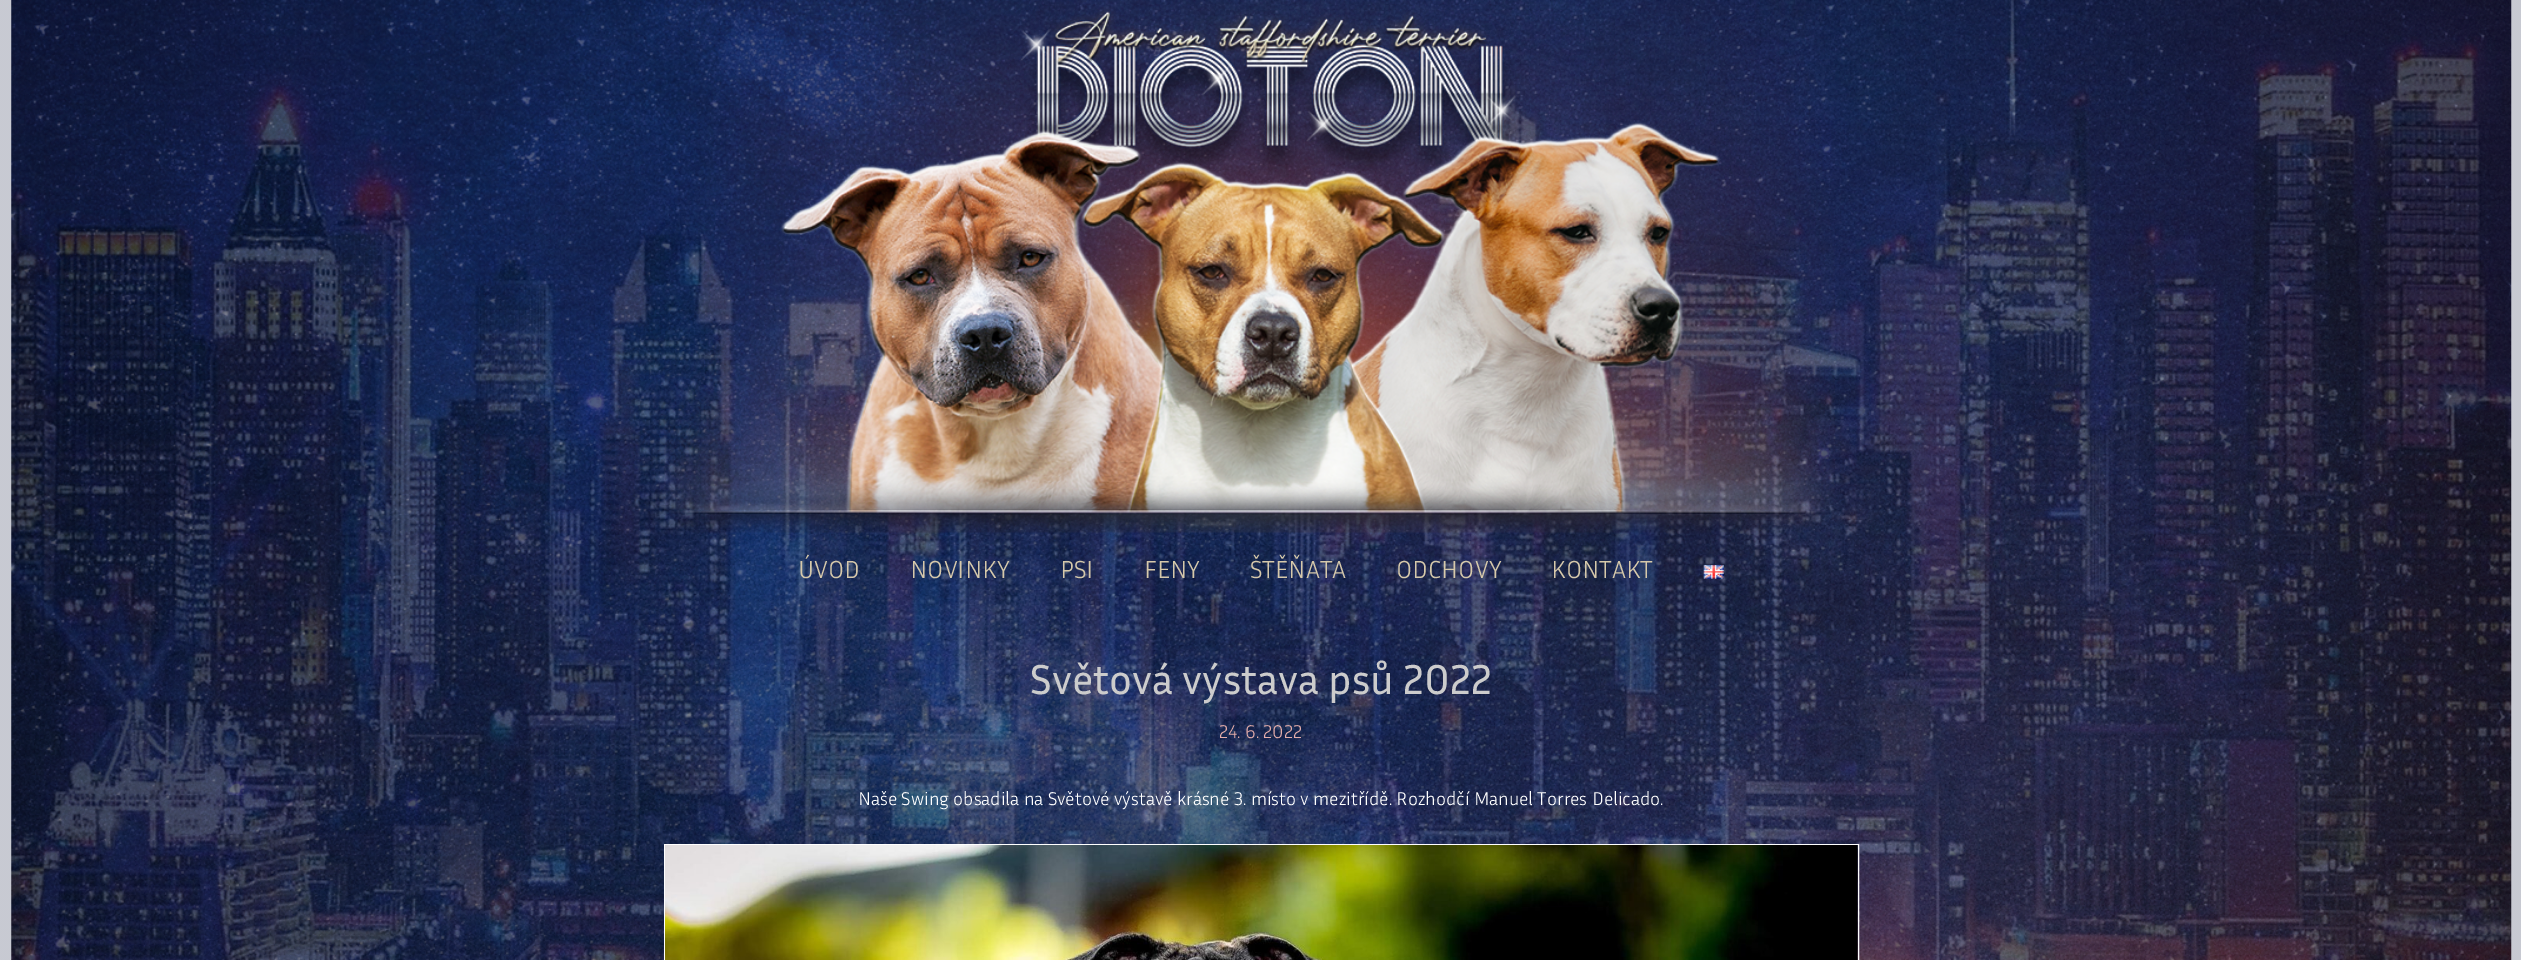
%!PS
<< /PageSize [2521 960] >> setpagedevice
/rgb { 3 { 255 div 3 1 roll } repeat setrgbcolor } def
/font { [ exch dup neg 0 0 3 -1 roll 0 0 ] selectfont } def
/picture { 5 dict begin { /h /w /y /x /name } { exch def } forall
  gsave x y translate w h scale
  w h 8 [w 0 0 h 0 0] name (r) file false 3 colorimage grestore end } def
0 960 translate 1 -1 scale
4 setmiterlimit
255 255 255 rgb
0 0 2521 960 rectfill
(img/1.rgb) 0 0 2521 960 picture
(img/2.rgb) 664 0 1171 533 picture
(img/3.rgb) 1703 565 21 14 picture
664.5 844.5 1194 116 rectstroke
(img/4.rgb) 665 845 1193 115 picture
/InriaSans-Light 25 font
214 201 171 rgb
[
  [(ÚVOD) 798 578]
  [(NOVINKY) 910 578]
  [(PSI) 1060 578]
  [(FENY) 1144 578]
  [(ŠTĚŇATA) 1250 578]
  [(ODCHOVY) 1396 578]
  [(KONTAKT) 1551 578]
] { aload pop moveto show } forall
/InriaSans-Regular 42.5 font
204 204 204 rgb
1030 694 moveto (Světová výstava psů 2022) show
/InriaSans-Light 18.75 font
229 174 170 rgb
1219 738 moveto (24. 6. 2022) show
255 255 255 rgb
858 805 moveto (Naše Swing obsadila na Světové výstavě krásné 3. místo v mezitřídě. Rozhodčí Manuel Torres Delicado.) show
showpage
